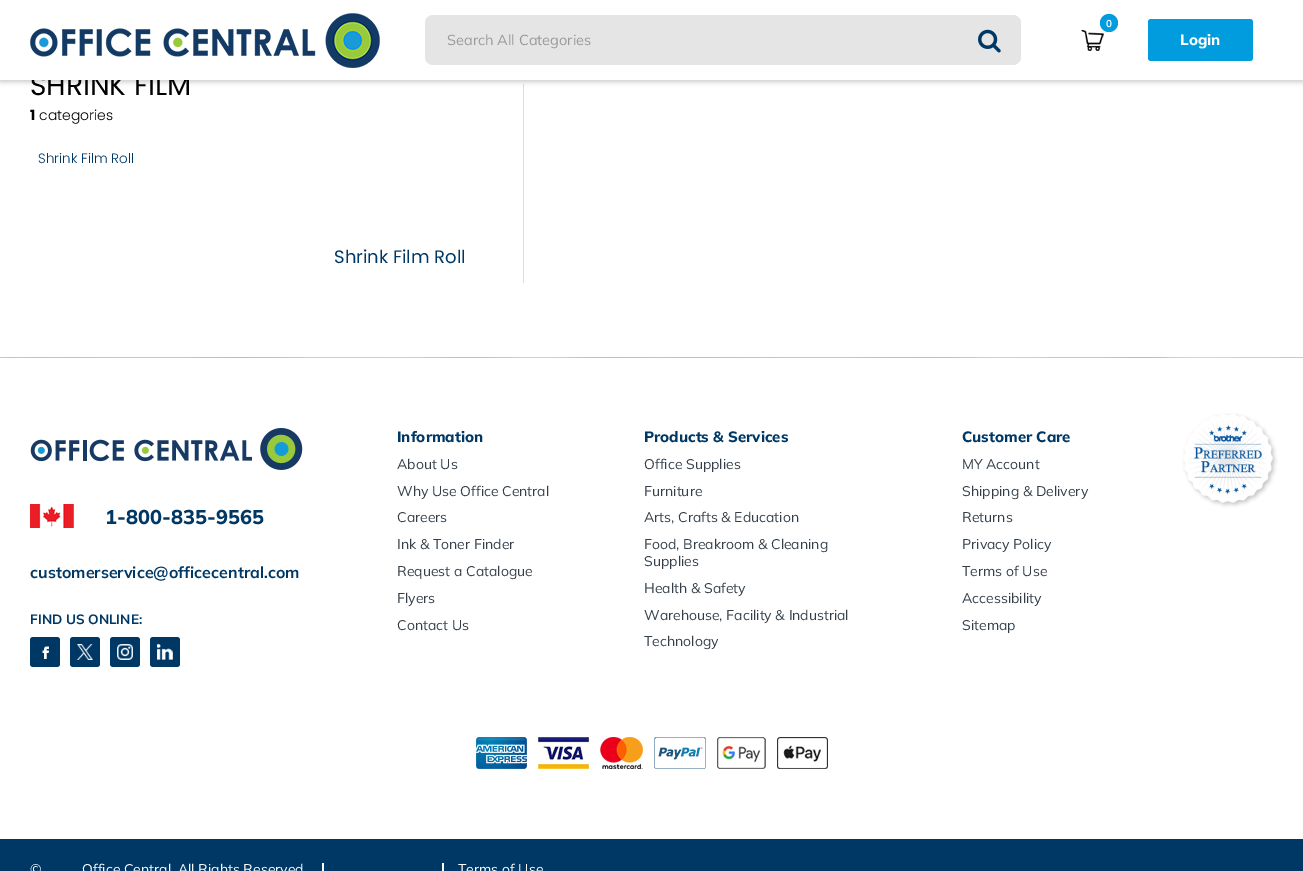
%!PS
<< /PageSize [1303 871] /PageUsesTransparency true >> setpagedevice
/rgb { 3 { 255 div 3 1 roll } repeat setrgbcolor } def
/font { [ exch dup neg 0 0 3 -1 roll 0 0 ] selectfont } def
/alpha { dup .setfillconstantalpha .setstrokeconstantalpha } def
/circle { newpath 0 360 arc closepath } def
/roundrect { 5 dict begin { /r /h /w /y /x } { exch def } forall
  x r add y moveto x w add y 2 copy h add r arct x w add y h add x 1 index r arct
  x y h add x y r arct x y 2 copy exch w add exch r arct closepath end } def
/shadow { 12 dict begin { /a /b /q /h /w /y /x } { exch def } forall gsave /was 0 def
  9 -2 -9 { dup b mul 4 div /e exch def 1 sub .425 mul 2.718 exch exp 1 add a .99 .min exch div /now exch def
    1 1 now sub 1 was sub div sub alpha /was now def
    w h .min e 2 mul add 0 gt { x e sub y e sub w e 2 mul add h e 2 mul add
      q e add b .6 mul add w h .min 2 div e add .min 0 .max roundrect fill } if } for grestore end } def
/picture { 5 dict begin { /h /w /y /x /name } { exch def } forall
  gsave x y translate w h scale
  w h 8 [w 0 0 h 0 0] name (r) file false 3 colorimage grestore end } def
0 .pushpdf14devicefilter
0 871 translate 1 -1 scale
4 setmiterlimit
255 255 255 rgb
0 0 1303 871 rectfill
221 221 221 rgb
523 84 1 199 rectfill
0 0 0 rgb
0 2 1303 80 0 2.5 0.2 shadow
(img/4.rgb) 0 357 1303 1 picture
(img/5.rgb) 30 428 273 42 picture
(img/6.rgb) 30 504 44 24 picture
0 56 101 rgb
30 637 30 30 3 roundrect fill
(img/7.rgb) 42 646 7 13 picture
70 637 30 30 3 roundrect fill
(img/8.rgb) 77 644 16 16 picture
110 637 30 30 3 roundrect fill
(img/9.rgb) 117 644 16 16 picture
150 637 30 30 3 roundrect fill
(img/10.rgb) 157 644 16 16 picture
(img/11.rgb) 1182 413 96 95 picture
(img/12.rgb) 476 737 352 32 picture
[
  [0 839 1303 32 0 56 101]
  [322 863 2 8 255 255 255]
  [442 863 2 8 255 255 255]
] { aload pop rgb rectfill } forall
/Poppins-Regular 28 font
0 0 0 rgb
30 95 moveto (SHRINK FILM) show
255 255 255 rgb
0 0 1303 80 rectfill
229 229 229 rgb
425 15 596 50 8 roundrect fill
(img/3.rgb) 978 29 23 24 picture
0 156 222 rgb
1148 19 105 42 3 roundrect fill
/Mulish-ExtraBold 15 font
255 255 255 rgb
1180 45 moveto (Login) show
(img/2.rgb) 1081 30 23 21 picture
0 156 222 rgb
1109 23 9 circle fill
/Mulish-Bold 10 font
255 255 255 rgb
1106 27 moveto (0) show
/Mulish-Regular 14.5 font
153 153 153 rgb
447 45 moveto (Search All Categories) show
(img/1.rgb) 30 13 350 55 picture
/Poppins-Bold 14 font
0 0 0 rgb
30 120 moveto (1) show
/Poppins-Light 14 font
39 120 moveto (categories) show
/Poppins-Light 13.5 font
0 56 101 rgb
38 163 moveto (Shrink Film Roll) show
/Poppins-Regular 18 font
334 263 moveto (Shrink Film Roll) show
/Mulish-ExtraBold 20 font
105 524 moveto (1-800-835-9565) show
/Mulish-Bold 16 font
30 578 moveto (customerservice@officecentral.com) show
/Mulish-Bold 13.5 font
30 624 moveto (FIND US ONLINE:) show
/Mulish-ExtraBold 15 font
397 442 moveto (Information) show
/Mulish-Regular 14 font
51 62 72 rgb
[
  [(About Us) 397 469]
  [(Why Use Office Central) 397 496]
  [(Careers) 397 522]
  [(Ink & Toner Finder) 397 549]
  [(Request a Catalogue) 397 576]
  [(Flyers) 397 603]
  [(Contact Us) 397 630]
] { aload pop moveto show } forall
/Mulish-ExtraBold 15 font
0 56 101 rgb
644 442 moveto (Products & Services) show
/Mulish-Regular 14 font
51 62 72 rgb
[
  [(Office Supplies) 644 469]
  [(Furniture) 644 496]
  [(Arts, Crafts & Education) 644 522]
  [(Food, Breakroom & Cleaning) 644 549]
  [(Supplies) 644 566]
  [(Health & Safety) 644 593]
  [(Warehouse, Facility & Industrial) 644 620]
  [(Technology) 644 646]
] { aload pop moveto show } forall
/Mulish-ExtraBold 15 font
0 56 101 rgb
962 442 moveto (Customer Care) show
/Mulish-Regular 14 font
51 62 72 rgb
[
  [(MY Account) 962 469]
  [(Shipping & Delivery) 962 496]
  [(Returns) 962 522]
  [(Privacy Policy) 962 549]
  [(Terms of Use) 962 576]
  [(Accessibility) 962 603]
  [(Sitemap) 962 630]
] { aload pop moveto show } forall
255 255 255 rgb
[
  [(©) 30 874]
  [(Office Central. All Rights Reserved) 82 874]
  [(Terms of Use) 458 874]
] { aload pop moveto show } forall
.poppdf14devicefilter showpage
